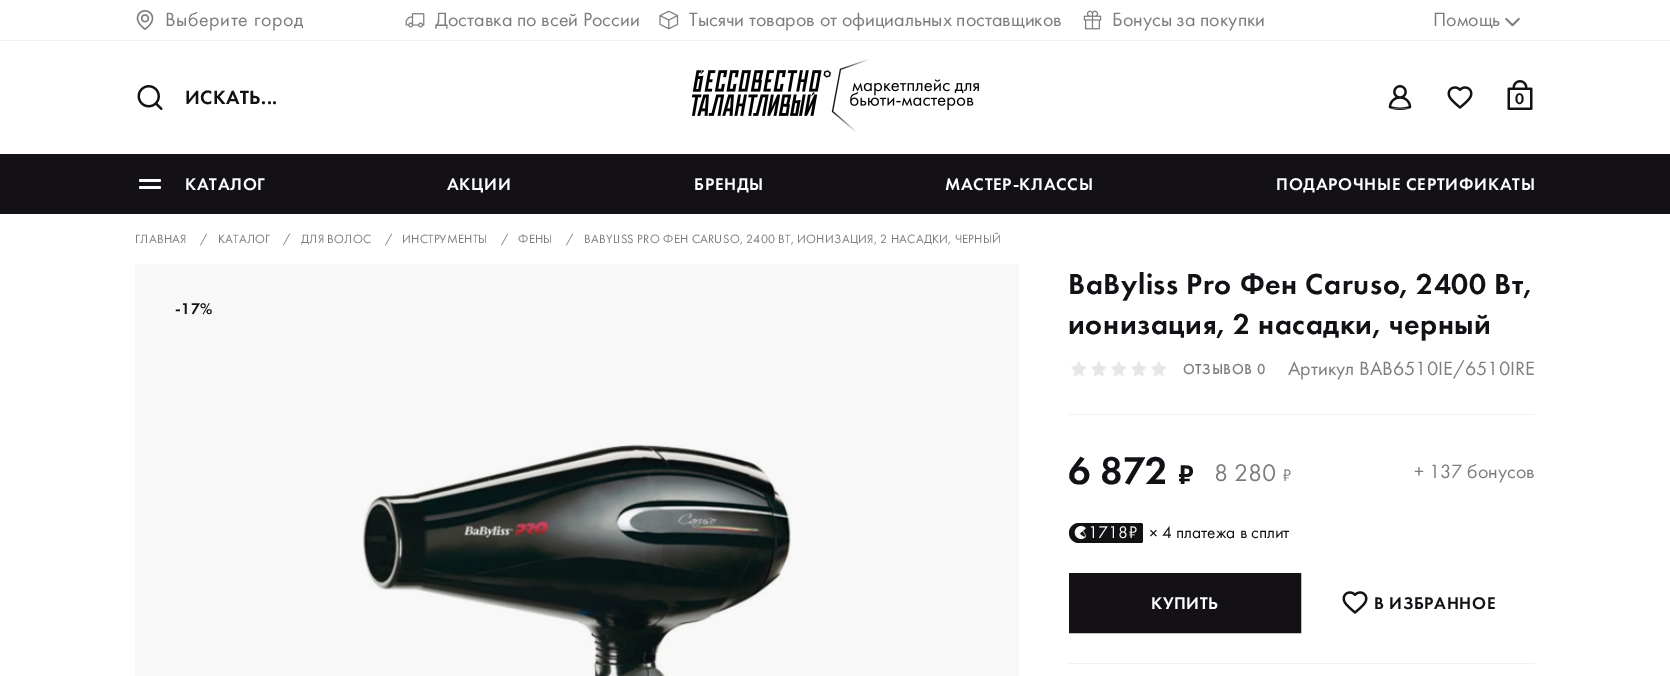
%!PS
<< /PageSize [1670 676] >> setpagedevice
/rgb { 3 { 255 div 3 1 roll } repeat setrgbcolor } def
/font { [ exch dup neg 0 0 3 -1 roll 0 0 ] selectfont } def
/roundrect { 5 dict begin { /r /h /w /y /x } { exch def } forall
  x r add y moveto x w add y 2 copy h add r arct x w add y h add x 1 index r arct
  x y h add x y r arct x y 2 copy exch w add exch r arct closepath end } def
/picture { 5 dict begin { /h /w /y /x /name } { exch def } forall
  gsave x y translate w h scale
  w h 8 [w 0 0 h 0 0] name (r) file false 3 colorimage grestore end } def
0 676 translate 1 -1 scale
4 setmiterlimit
255 255 255 rgb
0 0 1670 676 rectfill
248 248 248 rgb
135 264 884 412 rectfill
239 241 243 rgb
0 40 1670 1 rectfill
(img/1.rgb) 136 10 18 20 picture
(img/2.rgb) 405 13 20 15 picture
(img/3.rgb) 659 10 20 20 picture
(img/4.rgb) 1083 10 19 20 picture
(img/5.rgb) 1505 17 15 10 picture
(img/6.rgb) 137 85 26 25 picture
(img/7.rgb) 691 59 288 73 picture
(img/8.rgb) 1388 85 24 25 picture
(img/9.rgb) 1447 86 26 23 picture
(img/10.rgb) 1507 80 26 30 picture
20 17 22 rgb
0 154 1670 60 rectfill
255 255 255 rgb
139 179 22 3 1.5 roundrect fill
139 186 22 3 1.5 roundrect fill
(img/11.rgb) 362 444 429 232 picture
(img/12.rgb) 1071 361 15 15 picture
(img/12.rgb) 1091 361 15 15 picture
(img/12.rgb) 1111 361 15 15 picture
(img/12.rgb) 1131 361 15 15 picture
(img/12.rgb) 1151 361 15 15 picture
239 241 243 rgb
1069 414 466 1 rectfill
18 18 20 rgb
1079 523 moveto 1141 523 lineto 1142 523 1143 524 1143 525 curveto 1143 541 lineto 1143 542 1142 543 1141 543 curveto 1079 543 lineto 1073.5 543 1069 538.5 1069 533 curveto 1069 527.5 1073.5 523 1079 523 curveto closepath fill
(img/13.rgb) 1074 525 12 14 picture
20 17 22 rgb
1070.5 574.5 moveto 1299.5 574.5 lineto 1299.5 631.5 lineto 1070.5 631.5 lineto closepath gsave fill grestore
3 setlinewidth
stroke
(img/9.rgb) 1342 591 26 23 picture
239 241 243 rgb
1069 663 466 1 rectfill
/FuturaPT-Regular 20 font
125 125 125 rgb
165 26 moveto 0.6 0 (Выберите город) ashow
[
  [(Доставка по всей России) 435 26]
  [(Тысячи товаров от официальных поставщиков) 689 26]
  [(Бонусы за покупки) 1112 26]
  [(Помощь) 1433 26]
] { aload pop moveto show } forall
/FuturaPT-Medium 20 font
20 17 22 rgb
185 104 moveto 0.5 0 (ИСКАТЬ...) ashow
/FuturaPT-Medium 16 font
1515 104 moveto 0.6 0 (0) ashow
/FuturaPT-Medium 17.5 font
255 255 255 rgb
185 190 moveto 0.7 0 (КАТАЛОГ) ashow
447 190 moveto 0.7 0 (АКЦИИ) ashow
694 190 moveto 0.7 0 (БРЕНДЫ) ashow
945 190 moveto 0.7 0 (МАСТЕР-КЛАССЫ) ashow
1276 190 moveto 0.7 0 (ПОДАРОЧНЫЕ СЕРТИФИКАТЫ) ashow
/FuturaPT-Regular 12.5 font
125 125 125 rgb
135 243 moveto 0.25 0 (ГЛАВНАЯ) ashow
200 243 moveto 0.25 0 (/) ashow
218 243 moveto 0.25 0 (КАТАЛОГ) ashow
283 243 moveto 0.25 0 (/) ashow
301 243 moveto 0.25 0 (ДЛЯ ВОЛОС) ashow
385 243 moveto 0.25 0 (/) ashow
402 243 moveto 0.25 0 (ИНСТРУМЕНТЫ) ashow
501 243 moveto 0.25 0 (/) ashow
518 243 moveto 0.25 0 (ФЕНЫ) ashow
566 243 moveto 0.25 0 (/) ashow
584 243 moveto 0.25 0 (BABYLISS PRO ФЕН CARUSO, 2400 ВТ, ИОНИЗАЦИЯ, 2 НАСАДКИ, ЧЕРНЫЙ) ashow
/FuturaPT-Medium 16 font
20 17 22 rgb
175 314 moveto 0.5 0 (-17%) ashow
/FuturaPT-Medium 30 font
1068 294 moveto 0.6 0 (BaByliss Pro Фен Caruso, 2400 Вт,) ashow
1068 334 moveto 0.6 0 (ионизация, 2 насадки, черный) ashow
/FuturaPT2-Medium 15 font
125 125 125 rgb
1183 374 moveto 0.6 0 (ОТЗЫВОВ 0) ashow
/FuturaPT-Regular 20 font
1288 375 moveto (Артикул BAB6510IE/6510IRE) show
/FuturaPT-Medium 40 font
20 17 22 rgb
1068 484 moveto (6 872) show
/FuturaPT-Medium 28 font
1178 484 moveto (₽) show
/FuturaPT-Regular 25 font
125 125 125 rgb
1214 481 moveto (8 280) show
/FuturaPT-Regular 17.5 font
1282 481 moveto (₽) show
/FuturaPT-Regular 20 font
1414 478 moveto (+ 137 бонусов) show
/FuturaPT-Regular 17.5 font
255 255 255 rgb
1088 538 moveto (1718₽) show
20 17 22 rgb
1149 539 moveto (×) show
1162 538 moveto (4 платежа в сплит) show
/FuturaPT-Medium 17.5 font
255 255 255 rgb
1151 609 moveto 0.6 0 (КУПИТЬ) ashow
20 17 22 rgb
1374 609 moveto 0.6 0 (В ИЗБРАННОE) ashow
showpage
